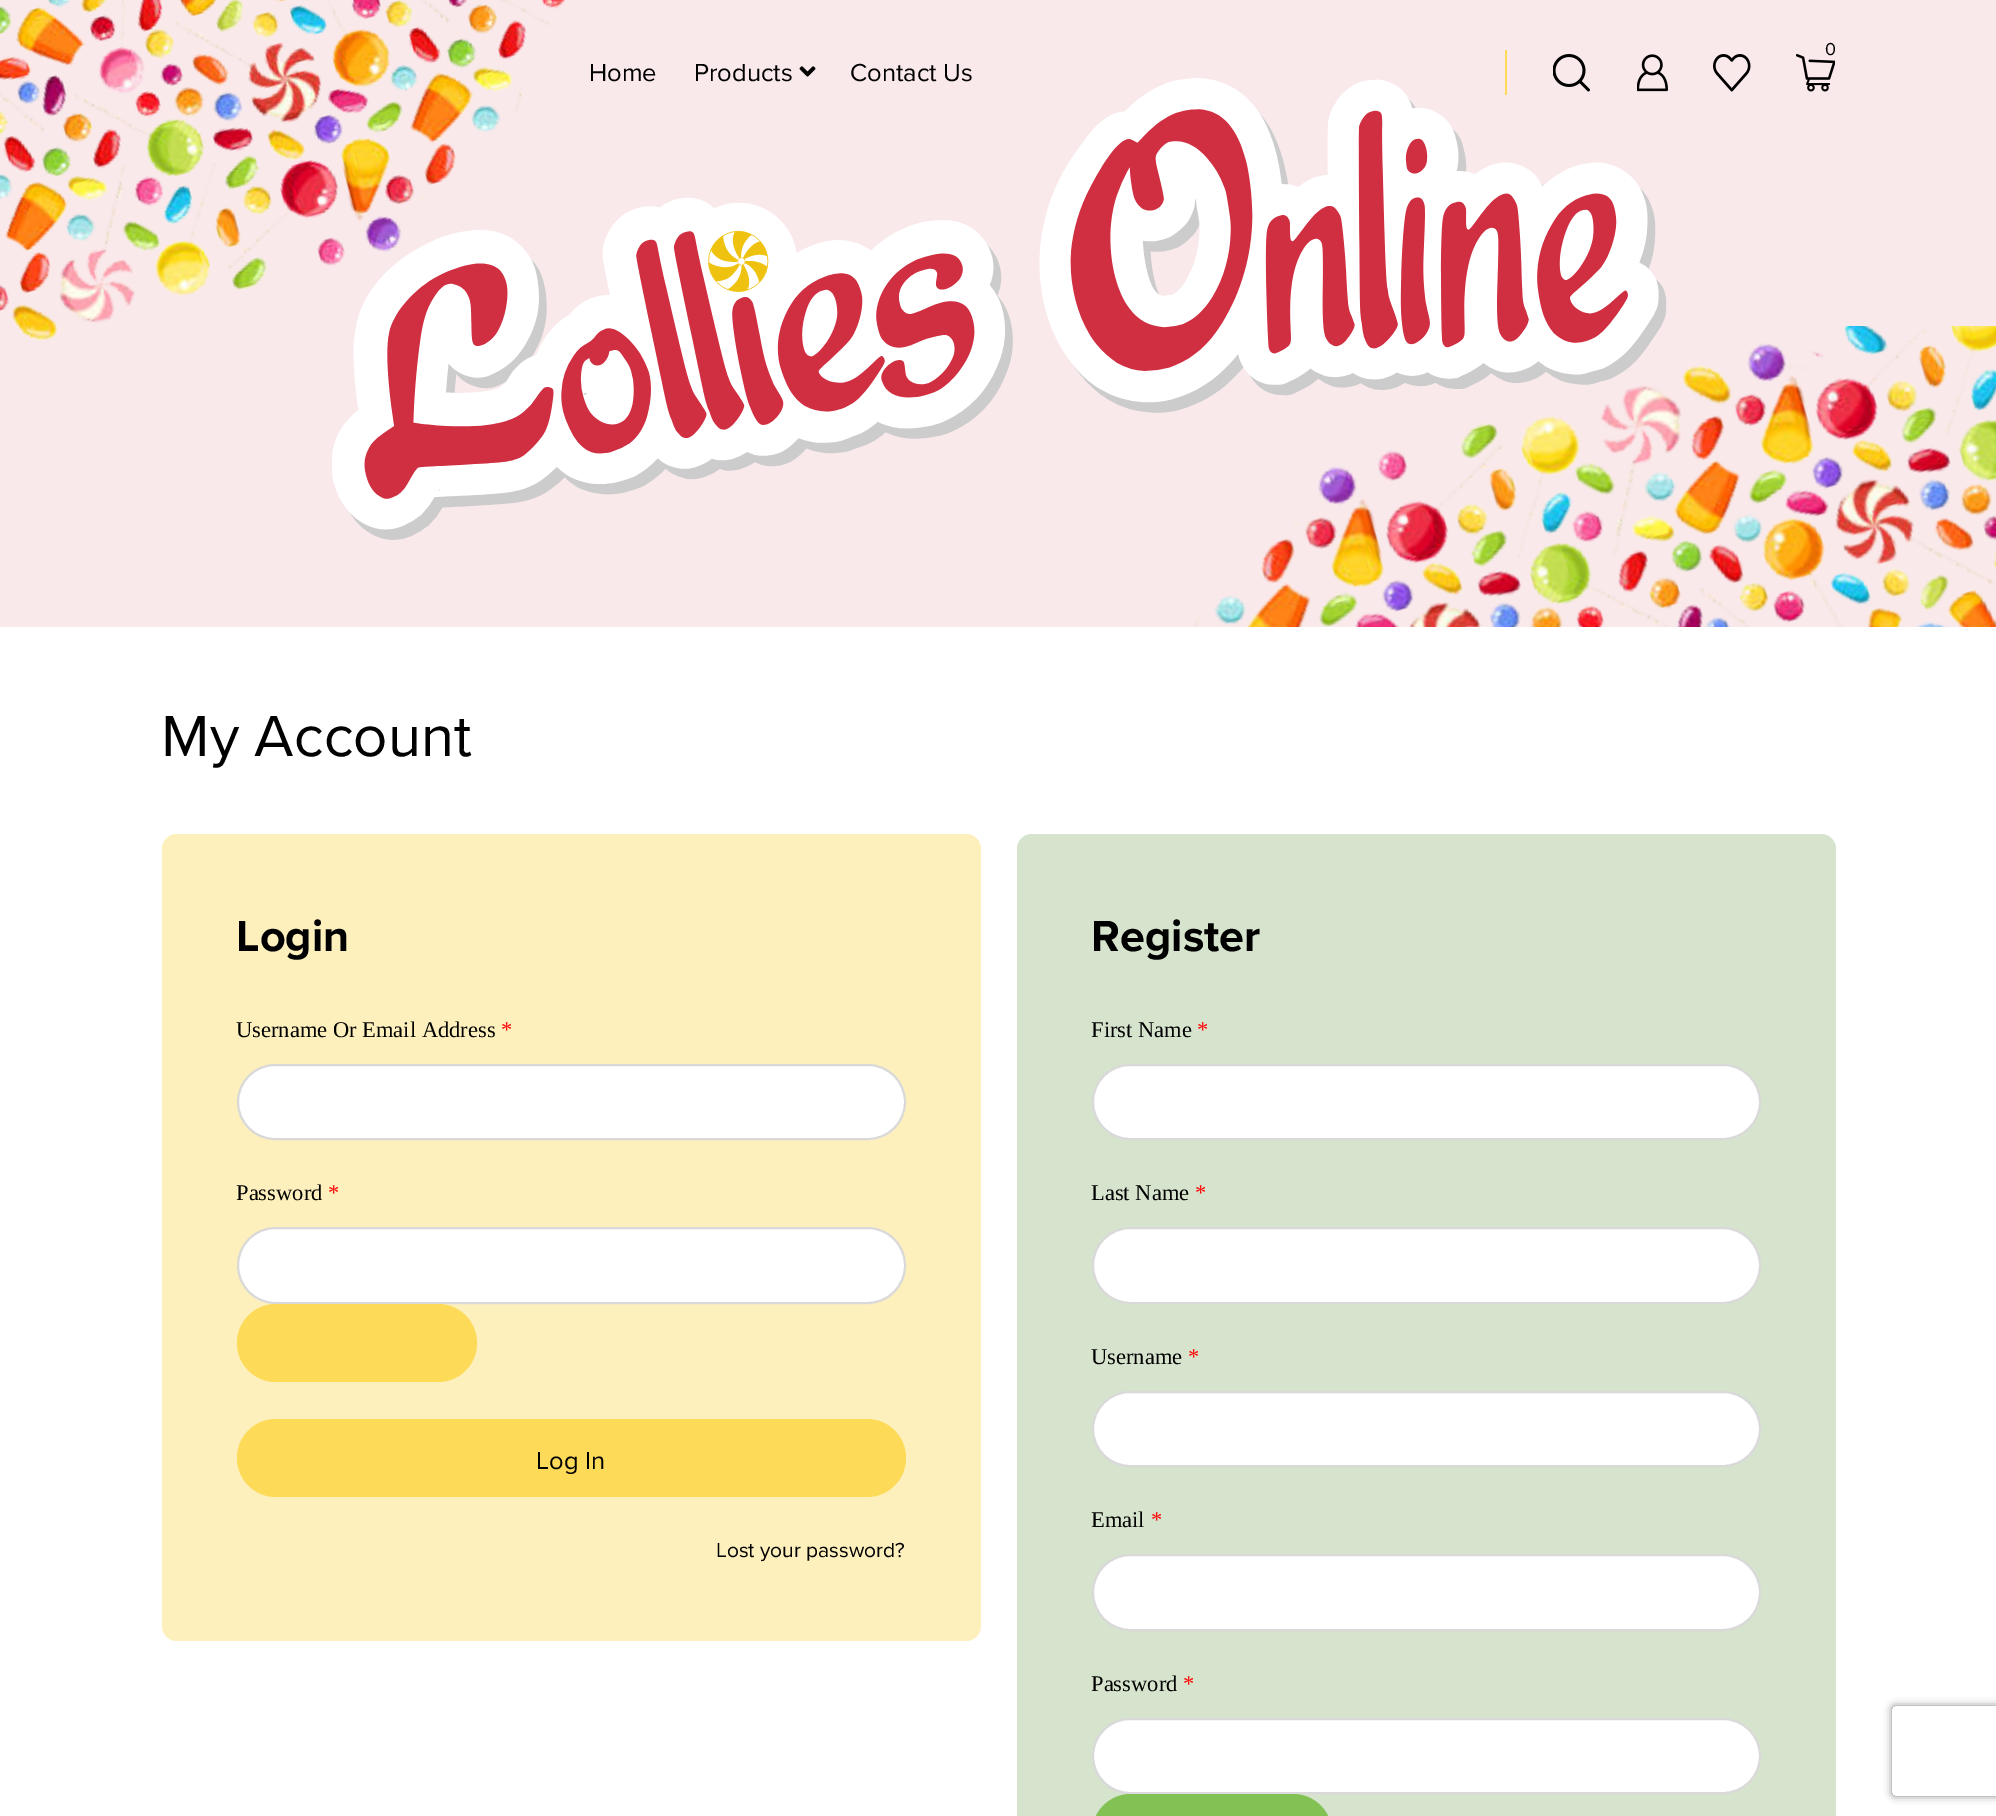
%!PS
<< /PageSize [1996 1816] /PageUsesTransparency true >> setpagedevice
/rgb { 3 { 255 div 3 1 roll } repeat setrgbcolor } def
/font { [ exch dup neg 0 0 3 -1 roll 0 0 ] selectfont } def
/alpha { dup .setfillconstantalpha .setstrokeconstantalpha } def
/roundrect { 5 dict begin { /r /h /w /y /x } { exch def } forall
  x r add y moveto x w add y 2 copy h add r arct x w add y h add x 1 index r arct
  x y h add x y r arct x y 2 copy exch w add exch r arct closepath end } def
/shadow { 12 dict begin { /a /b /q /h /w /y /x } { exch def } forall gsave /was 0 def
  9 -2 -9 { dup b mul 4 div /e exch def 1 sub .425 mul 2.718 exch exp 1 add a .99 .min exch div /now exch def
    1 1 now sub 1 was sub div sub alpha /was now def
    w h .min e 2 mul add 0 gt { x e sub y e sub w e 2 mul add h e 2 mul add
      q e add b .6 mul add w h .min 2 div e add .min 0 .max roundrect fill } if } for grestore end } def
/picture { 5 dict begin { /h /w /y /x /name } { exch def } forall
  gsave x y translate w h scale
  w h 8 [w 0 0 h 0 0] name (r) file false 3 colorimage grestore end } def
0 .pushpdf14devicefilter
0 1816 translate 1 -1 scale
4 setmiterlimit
255 255 255 rgb
0 0 1996 1816 rectfill
250 233 235 rgb
0 0 1996 627 rectfill
(img/2.rgb) 332 78 1335 462 picture
(img/1.rgb) 0 0 565 341 picture
(img/3.rgb) 1157 326 839 301 picture
253 218 88 rgb
1505 50 2 45 rectfill
(img/4.rgb) 1553 54 37 38 picture
(img/5.rgb) 1637 54 31 38 picture
(img/6.rgb) 1713 54 38 38 picture
(img/7.rgb) 1796 54 39 38 picture
(img/8.rgb) 799 66 17 11 picture
254 240 188 rgb
162 834 819 807 15 roundrect fill
255 255 255 rgb
238 1065 667 74 37 roundrect gsave fill grestore
217 217 217 rgb
2 setlinewidth
stroke
255 255 255 rgb
238 1228 667 75 37.5 roundrect gsave fill grestore
217 217 217 rgb
stroke
253 218 88 rgb
237 1304 240 78 39 roundrect fill
237 1419 669 78 39 roundrect fill
214 227 205 rgb
1017 834 819 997 15 roundrect fill
255 255 255 rgb
1093 1065 667 74 37 roundrect gsave fill grestore
217 217 217 rgb
stroke
255 255 255 rgb
1093 1228 667 75 37.5 roundrect gsave fill grestore
217 217 217 rgb
stroke
255 255 255 rgb
1093 1392 667 74 37 roundrect gsave fill grestore
217 217 217 rgb
stroke
255 255 255 rgb
1093 1555 667 75 37.5 roundrect gsave fill grestore
217 217 217 rgb
stroke
255 255 255 rgb
1093 1719 667 74 37 roundrect gsave fill grestore
217 217 217 rgb
stroke
130 194 85 rgb
1092 1794 240 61 39 roundrect fill
gsave
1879 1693 moveto 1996 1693 lineto 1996 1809 lineto 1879 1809 lineto closepath 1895 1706 moveto 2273 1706 lineto 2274.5 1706 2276 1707.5 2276 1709 curveto 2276 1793 lineto 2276 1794.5 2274.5 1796 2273 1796 curveto 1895 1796 lineto 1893.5 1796 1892 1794.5 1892 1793 curveto 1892 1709 lineto 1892 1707.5 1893.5 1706 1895 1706 curveto closepath eoclip newpath
128 128 128 rgb
1892 1706 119 90 3 4 1 shadow
grestore
/ProximaNova-Regular 18 font
0 0 0 rgb
1825 55 moveto (0) show
/ProximaNova-Regular 25.5 font
[
  [(Home) 589 81]
  [(Products) 694 81]
  [(Contact Us) 850 81]
] { aload pop moveto show } forall
/ProximaNova-Regular 60 font
161 756 moveto (My Account) show
/ProximaNova-Bold 45 font
236 951 moveto (Login) show
/LiberationSerif-Regular 22.5 font
236 1037 moveto (Username Or Email Address) show
255 0 0 rgb
501 1037 moveto (*) show
0 0 0 rgb
236 1200 moveto (Password) show
255 0 0 rgb
328 1200 moveto (*) show
/ProximaNova-Regular 25.5 font
0 0 0 rgb
536 1469 moveto (Log In) show
/ProximaNova-Regular 21 font
716 1557 moveto (Lost your password?) show
/ProximaNova-Bold 45 font
1091 951 moveto (Register) show
/LiberationSerif-Regular 22.5 font
1091 1037 moveto (First Name) show
255 0 0 rgb
1197 1037 moveto (*) show
0 0 0 rgb
1091 1200 moveto (Last Name) show
255 0 0 rgb
1195 1200 moveto (*) show
0 0 0 rgb
1091 1364 moveto (Username) show
255 0 0 rgb
1188 1364 moveto (*) show
0 0 0 rgb
1091 1527 moveto (Email) show
255 0 0 rgb
1151 1527 moveto (*) show
0 0 0 rgb
1091 1691 moveto (Password) show
255 0 0 rgb
1183 1691 moveto (*) show
.poppdf14devicefilter showpage
